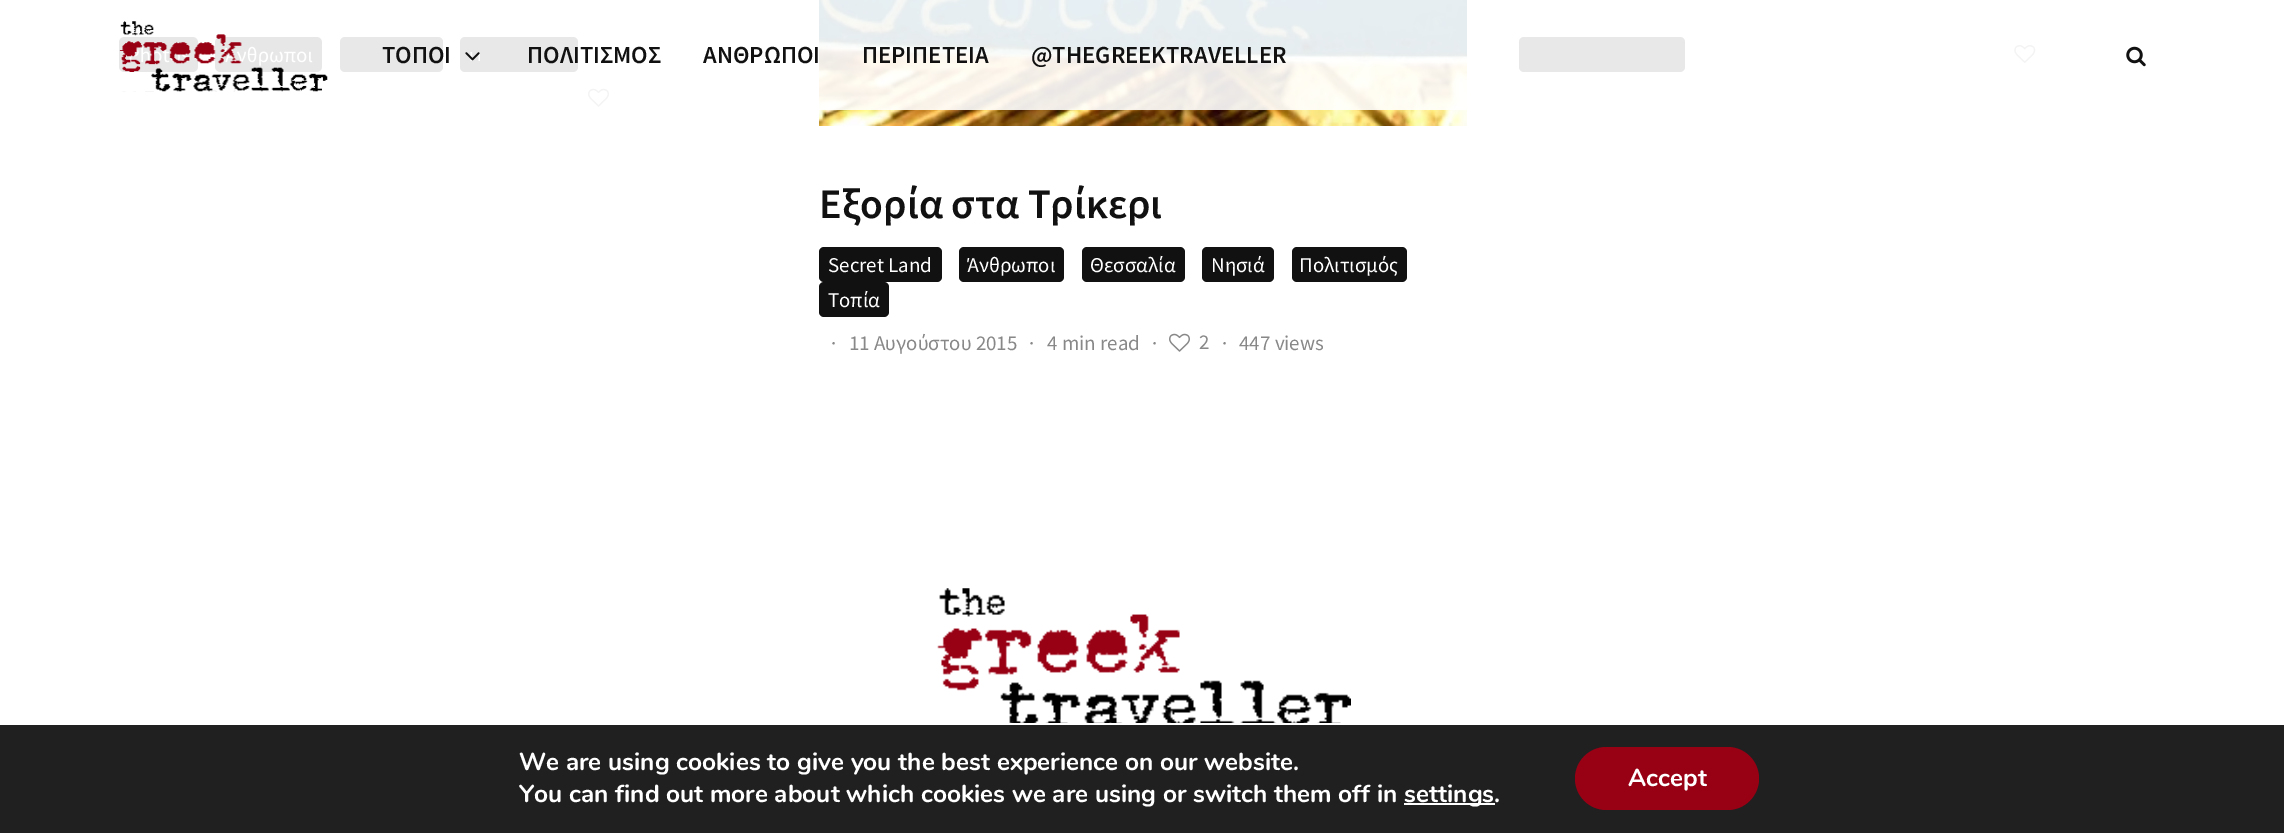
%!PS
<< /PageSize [2284 833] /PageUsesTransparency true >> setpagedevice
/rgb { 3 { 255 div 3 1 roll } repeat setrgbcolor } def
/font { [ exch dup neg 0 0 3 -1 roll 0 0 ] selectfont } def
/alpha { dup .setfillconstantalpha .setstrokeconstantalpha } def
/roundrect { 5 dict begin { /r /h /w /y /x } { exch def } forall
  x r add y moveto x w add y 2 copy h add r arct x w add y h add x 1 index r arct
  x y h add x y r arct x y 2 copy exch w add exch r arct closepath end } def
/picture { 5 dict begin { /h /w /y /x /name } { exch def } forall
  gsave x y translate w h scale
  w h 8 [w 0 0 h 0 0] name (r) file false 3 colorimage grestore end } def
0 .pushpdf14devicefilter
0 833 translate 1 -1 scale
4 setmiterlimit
255 255 255 rgb
0 0 2284 833 rectfill
17 17 17 rgb
119 37 79 35 5 roundrect fill
215 37 107 35 5 roundrect fill
340 37 103 35 5 roundrect fill
460 37 118 35 5 roundrect fill
(img/4.rgb) 588 88 21 19 picture
1519 37 166 35 5 roundrect fill
(img/5.rgb) 2014 45 22 18 picture
(img/6.rgb) 819 0 648 126 picture
0.9 alpha
255 255 255 rgb
119 0 1917 110 rectfill
1 alpha
(img/1.rgb) 119 21 209 71 picture
(img/2.rgb) 465 52 15 9 picture
(img/3.rgb) 2126 46 20 21 picture
17 17 17 rgb
819 247 123 35 5 roundrect fill
959 247 105 35 5 roundrect fill
1082 247 103 35 5 roundrect fill
1202 247 72 35 5 roundrect fill
1292 247 115 35 5 roundrect fill
819 282 70 35 5 roundrect fill
(img/4.rgb) 1169 333 21 19 picture
(img/7.rgb) 937 588 414 135 picture
32 32 32 rgb
0 725 2284 108 rectfill
255 255 255 rgb
1404 803 91 2 rectfill
152 0 20 rgb
1575 747 184 63 31.5 roundrect fill
/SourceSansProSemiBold-SemiBold 24.5 font
17 17 17 rgb
[
  [(ΤΟΠΟΙ) 382 63]
  [(ΠΟΛΙΤΙΣΜΟΣ) 527 63]
  [(ΑΝΘΡΩΠΟΙ) 703 63]
  [(ΠΕΡΙΠΕΤΕΙΑ) 862 63]
  [(@THEGREEKTRAVELLER) 1031 63]
] { aload pop moveto show } forall
/SourceSansProSemiBold-SemiBold 42 font
819 218 moveto (Εξορία στα Τρίκερι) show
/SourceSansPro-Regular 21 font
255 255 255 rgb
[
  [(Secret Land) 828 272]
  [(Άνθρωποι) 967 272]
  [(Θεσσαλία) 1090 272]
  [(Νησιά) 1211 272]
  [(Πολιτισμός) 1299 272]
  [(Τοπία) 828 307]
] { aload pop moveto show } forall
136 136 136 rgb
[
  [(·) 831 350]
  [(11 Αυγούστου 2015) 849 350]
  [(·) 1029 350]
  [(4 min read) 1047 350]
  [(·) 1152 350]
  [(2) 1199 349]
  [(·) 1222 350]
  [(447 views) 1239 350]
] { aload pop moveto show } forall
/Nunito-Bold 24.5 font
255 255 255 rgb
[
  [(We are using cookies to give you the best experience on our website.) 519 770]
  [(You can find out more about which cookies we are using or switch them off in) 519 802]
  [(settings.) 1404 802]
  [(Accept) 1628 786]
] { aload pop moveto show } forall
.poppdf14devicefilter showpage
